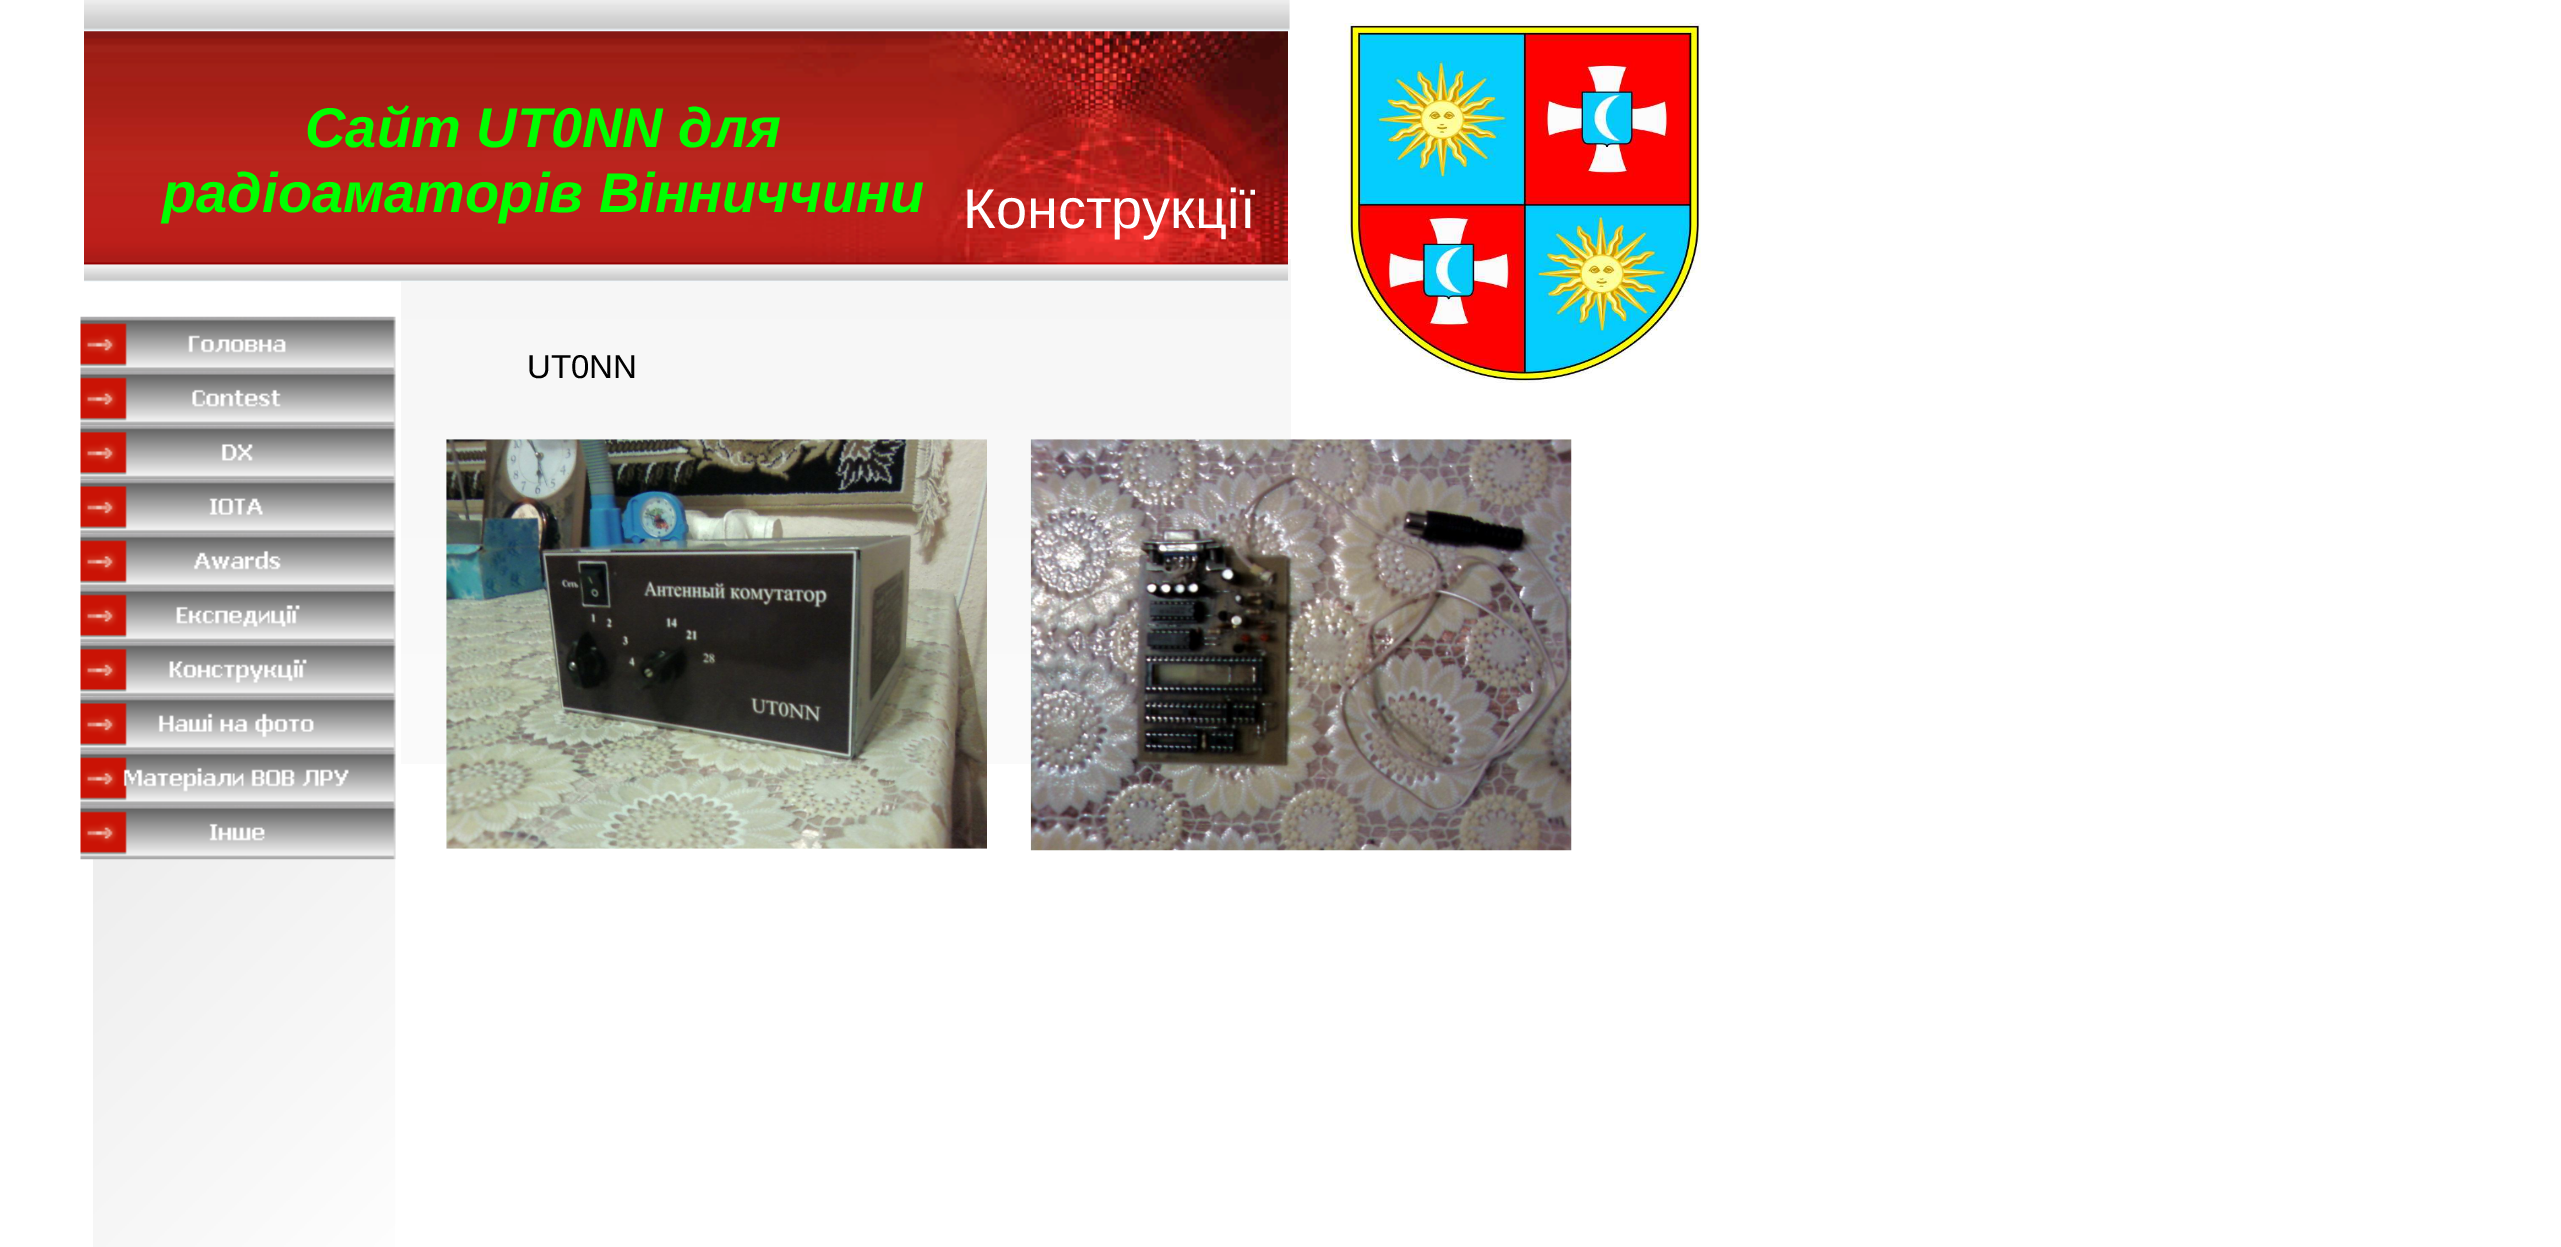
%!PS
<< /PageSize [2561 1247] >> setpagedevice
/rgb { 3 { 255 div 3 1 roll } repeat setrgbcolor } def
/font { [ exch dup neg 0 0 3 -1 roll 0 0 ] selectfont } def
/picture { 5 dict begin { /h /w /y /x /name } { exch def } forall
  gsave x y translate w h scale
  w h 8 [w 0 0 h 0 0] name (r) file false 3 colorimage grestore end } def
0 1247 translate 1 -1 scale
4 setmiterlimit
255 255 255 rgb
0 0 2561 1247 rectfill
(img/4.rgb) 401 259 890 505 picture
(img/2.rgb) 84 31 1204 234 picture
(img/1.rgb) 84 0 1206 32 picture
(img/3.rgb) 1344 23 357 360 picture
(img/5.rgb) 84 264 1204 18 picture
(img/6.rgb) 80 316 316 55 picture
(img/7.rgb) 80 371 316 55 picture
(img/9.rgb) 93 435 303 812 picture
(img/8.rgb) 80 425 316 55 picture
(img/10.rgb) 446 439 541 410 picture
(img/11.rgb) 1030 439 542 412 picture
(img/12.rgb) 80 479 316 55 picture
(img/13.rgb) 80 533 316 55 picture
(img/14.rgb) 80 588 316 55 picture
(img/15.rgb) 80 642 316 55 picture
(img/16.rgb) 80 696 316 55 picture
(img/17.rgb) 80 750 316 55 picture
(img/18.rgb) 80 805 316 55 picture
/LiberationSans-BoldItalic 56 font
0 255 0 rgb
305 147 moveto (Сайт UT0NN для) show
162 212 moveto (радіоаматорів Вінниччини) show
/LiberationSans-Regular 56 font
255 255 255 rgb
963 228 moveto (Конструкції) show
/LiberationSans-Regular 33 font
0 0 0 rgb
527 378 moveto (UT0NN) show
showpage
